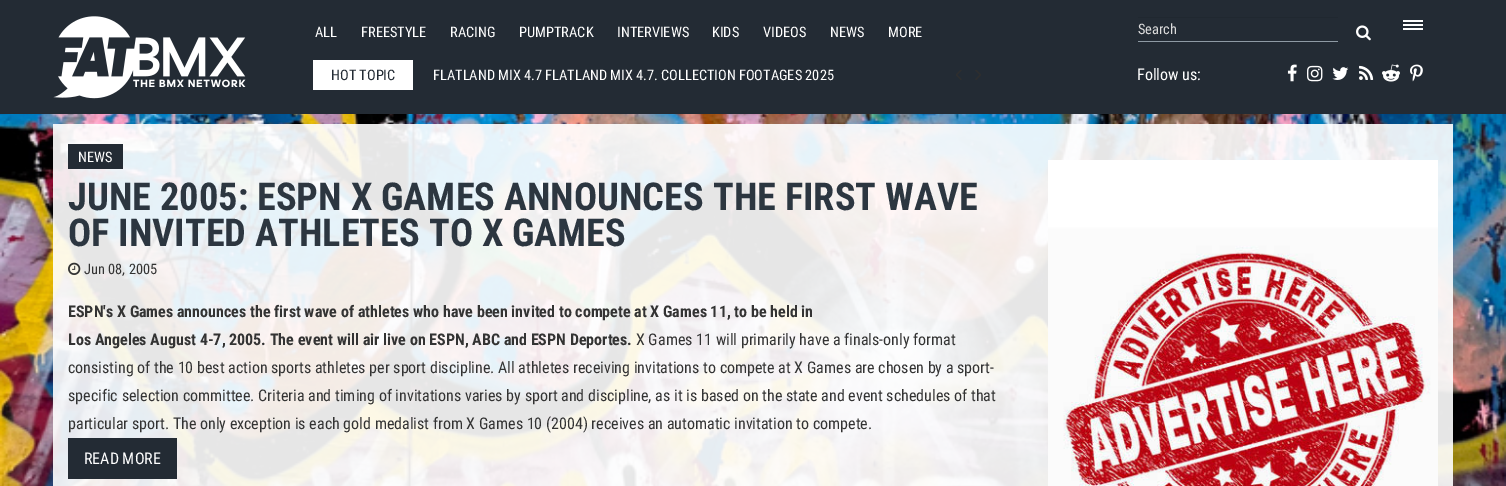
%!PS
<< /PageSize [1506 486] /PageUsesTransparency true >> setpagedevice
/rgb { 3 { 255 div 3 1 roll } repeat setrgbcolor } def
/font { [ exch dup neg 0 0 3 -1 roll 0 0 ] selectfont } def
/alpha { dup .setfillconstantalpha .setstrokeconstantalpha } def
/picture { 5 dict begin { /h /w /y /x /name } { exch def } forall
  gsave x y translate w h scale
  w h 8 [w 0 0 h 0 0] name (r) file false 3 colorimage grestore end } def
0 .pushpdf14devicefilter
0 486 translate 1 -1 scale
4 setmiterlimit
255 255 255 rgb
0 0 1506 486 rectfill
(img/1.rgb) 0 114 1506 372 picture
35 43 52 rgb
0 0 1506 114 rectfill
(img/2.rgb) 53 16 193 83 picture
32 40 48 rgb
1138 17 200 1 rectfill
142 154 164 rgb
1138 41 200 1 rectfill
(img/3.rgb) 1356 25 15 16 picture
[
  [1403 24 20 2 255 255 255]
  [1403 20 20 2 255 255 255]
  [1403 28 20 2 255 255 255]
  [313 60 100 30 255 255 255]
] { aload pop rgb rectfill } forall
(img/4.rgb) 956 70 6 10 picture
(img/5.rgb) 975 70 6 10 picture
(img/6.rgb) 1287 64 10 18 picture
(img/7.rgb) 1307 65 16 17 picture
(img/8.rgb) 1332 67 17 13 picture
(img/9.rgb) 1359 65 15 15 picture
(img/10.rgb) 1382 64 18 18 picture
(img/11.rgb) 1410 64 13 18 picture
0.9 alpha
53 124 1400 362 rectfill
1 alpha
35 43 52 rgb
68 144 55 25 rectfill
(img/12.rgb) 68 262 13 13 picture
68 438 109 41 rectfill
(img/13.rgb) 1048 160 390 326 picture
/RobotoCondensed-Regular 14.4 font
255 255 255 rgb
[
  [(ALL) 315 37]
  [(FREESTYLE) 361 37]
  [(RACING) 450 37]
  [(PUMPTRACK) 519 37]
  [(INTERVIEWS) 617 37]
  [(KIDS) 712 37]
  [(VIDEOS) 763 37]
  [(NEWS) 830 37]
  [(MORE) 888 37]
] { aload pop moveto show } forall
221 221 221 rgb
1138 34 moveto (Search) show
35 43 52 rgb
331 80 moveto (HOT TOPIC) show
255 255 255 rgb
433 80 moveto (FLATLAND MIX 4.7 FLATLAND MIX 4.7. COLLECTION FOOTAGES 2025) show
/RobotoCondensed-Regular 16 font
1137 80 moveto (Follow us:) show
/RobotoCondensed-Regular 14.4 font
78 162 moveto (NEWS) show
/RobotoCondensed-Bold 38.4 font
44 54 64 rgb
68 210 moveto (JUNE 2005: ESPN X GAMES ANNOUNCES THE FIRST WAVE) show
68 246 moveto (OF INVITED ATHLETES TO X GAMES) show
/RobotoCondensed-Regular 14.4 font
51 51 51 rgb
84 274 moveto (Jun 08, 2005) show
/RobotoCondensed-Bold 16 font
68 317 moveto (ESPN's X Games announces the first wave of athletes who have been invited to compete at X Games 11, to be held in) show
68 345 moveto (Los Angeles August 4-7, 2005. The event will air live on ESPN, ABC and ESPN Deportes.) show
/RobotoCondensed-Regular 16 font
[
  [(X Games 11 will primarily have a finals-only format) 636 345]
  [(consisting of the 10 best action sports athletes per sport discipline. All athletes receiving invitations to compete at X Games are chosen by a sport-) 68 373]
  [(specific selection committee. Criteria and timing of invitations varies by sport and discipline, as it is based on the state and event schedules of that) 68 401]
  [(particular sport. The only exception is each gold medalist from X Games 10 \(2004\) receives an automatic invitation to compete.) 68 429]
] { aload pop moveto show } forall
255 255 255 rgb
84 464 moveto (READ MORE) show
.poppdf14devicefilter showpage
